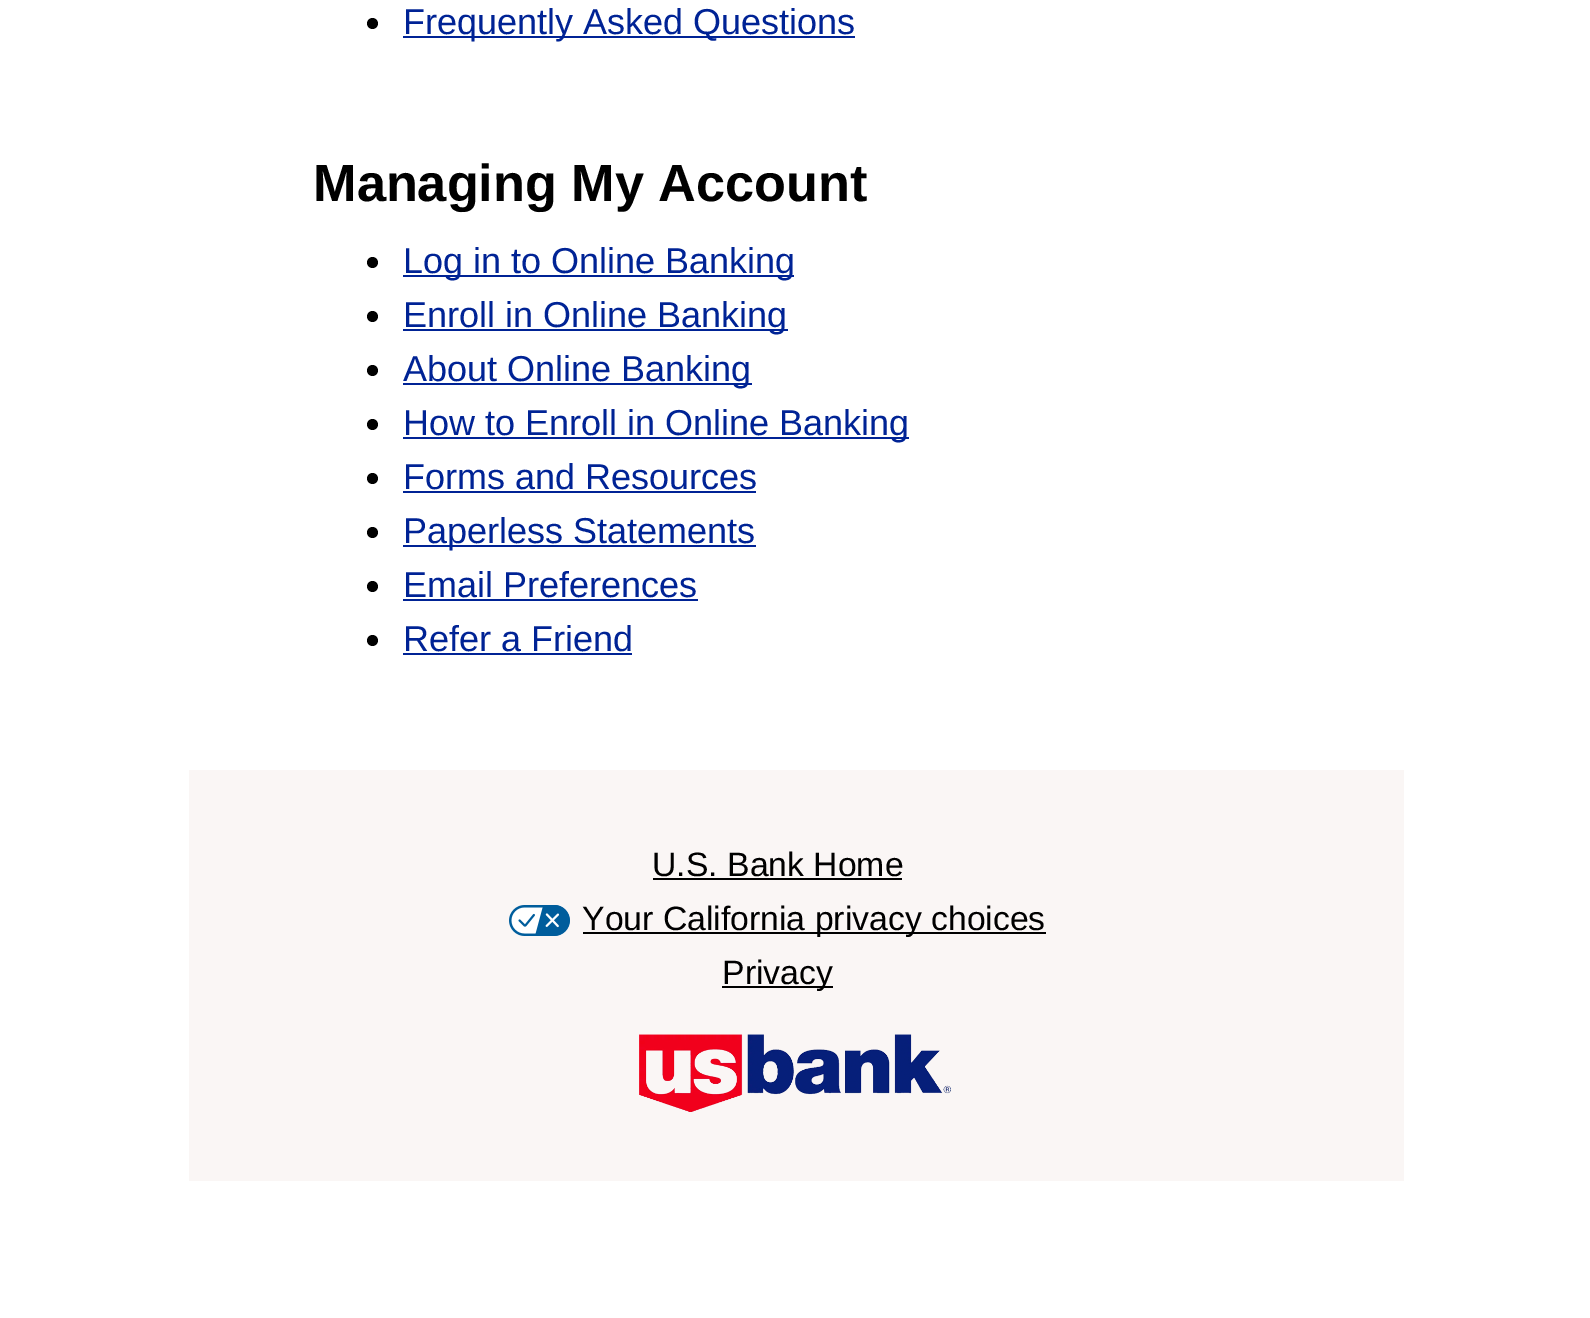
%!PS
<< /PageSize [1590 1318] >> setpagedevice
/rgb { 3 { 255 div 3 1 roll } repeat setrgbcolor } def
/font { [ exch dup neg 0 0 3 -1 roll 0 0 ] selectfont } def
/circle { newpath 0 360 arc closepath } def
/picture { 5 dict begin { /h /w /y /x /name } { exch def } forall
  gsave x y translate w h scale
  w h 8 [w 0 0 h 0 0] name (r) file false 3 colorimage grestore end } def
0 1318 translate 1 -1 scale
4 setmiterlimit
255 255 255 rgb
0 0 1590 1318 rectfill
0 0 0 rgb
372.5 23.5 5.5 circle fill
0 35 149 rgb
403 36 452 2 rectfill
0 0 0 rgb
372.5 262.5 5.5 circle fill
0 35 149 rgb
403 275 391 2 rectfill
0 0 0 rgb
372.5 316.5 5.5 circle fill
0 35 149 rgb
403 329 385 2 rectfill
0 0 0 rgb
372.5 370.5 5.5 circle fill
0 35 149 rgb
403 383 349 2 rectfill
0 0 0 rgb
372.5 424.5 5.5 circle fill
0 35 149 rgb
403 437 506 2 rectfill
0 0 0 rgb
372.5 478.5 5.5 circle fill
0 35 149 rgb
403 491 353 2 rectfill
0 0 0 rgb
372.5 532.5 5.5 circle fill
0 35 149 rgb
403 545 353 2 rectfill
0 0 0 rgb
372.5 586.5 5.5 circle fill
0 35 149 rgb
403 599 295 2 rectfill
0 0 0 rgb
372.5 640.5 5.5 circle fill
[
  [403 653 229 2 0 35 149]
  [189 770 1215 411 250 246 245]
  [653 878 249 2 0 0 0]
] { aload pop rgb rectfill } forall
(img/1.rgb) 509 905 61 31 picture
583 932 463 2 rectfill
722 986 111 2 rectfill
(img/2.rgb) 639 1034 312 78 picture
/LiberationSans-Regular 36 font
0 35 149 rgb
403 34 moveto (Frequently Asked Questions) show
/LiberationSans-Bold 52.25 font
0 0 0 rgb
313 201 moveto (Managing My Account) show
/LiberationSans-Regular 36 font
0 35 149 rgb
[
  [(Log in to Online Banking) 403 273]
  [(Enroll in Online Banking) 403 327]
  [(About Online Banking) 403 381]
  [(How to Enroll in Online Banking) 403 435]
  [(Forms and Resources) 403 489]
  [(Paperless Statements) 403 543]
  [(Email Preferences) 403 597]
  [(Refer a Friend) 403 651]
] { aload pop moveto show } forall
/LiberationSans-Regular 33.75 font
0 0 0 rgb
[
  [(U.S. Bank Home) 652 876]
  [(Your California privacy choices) 582 930]
  [(Privacy) 722 984]
] { aload pop moveto show } forall
showpage
